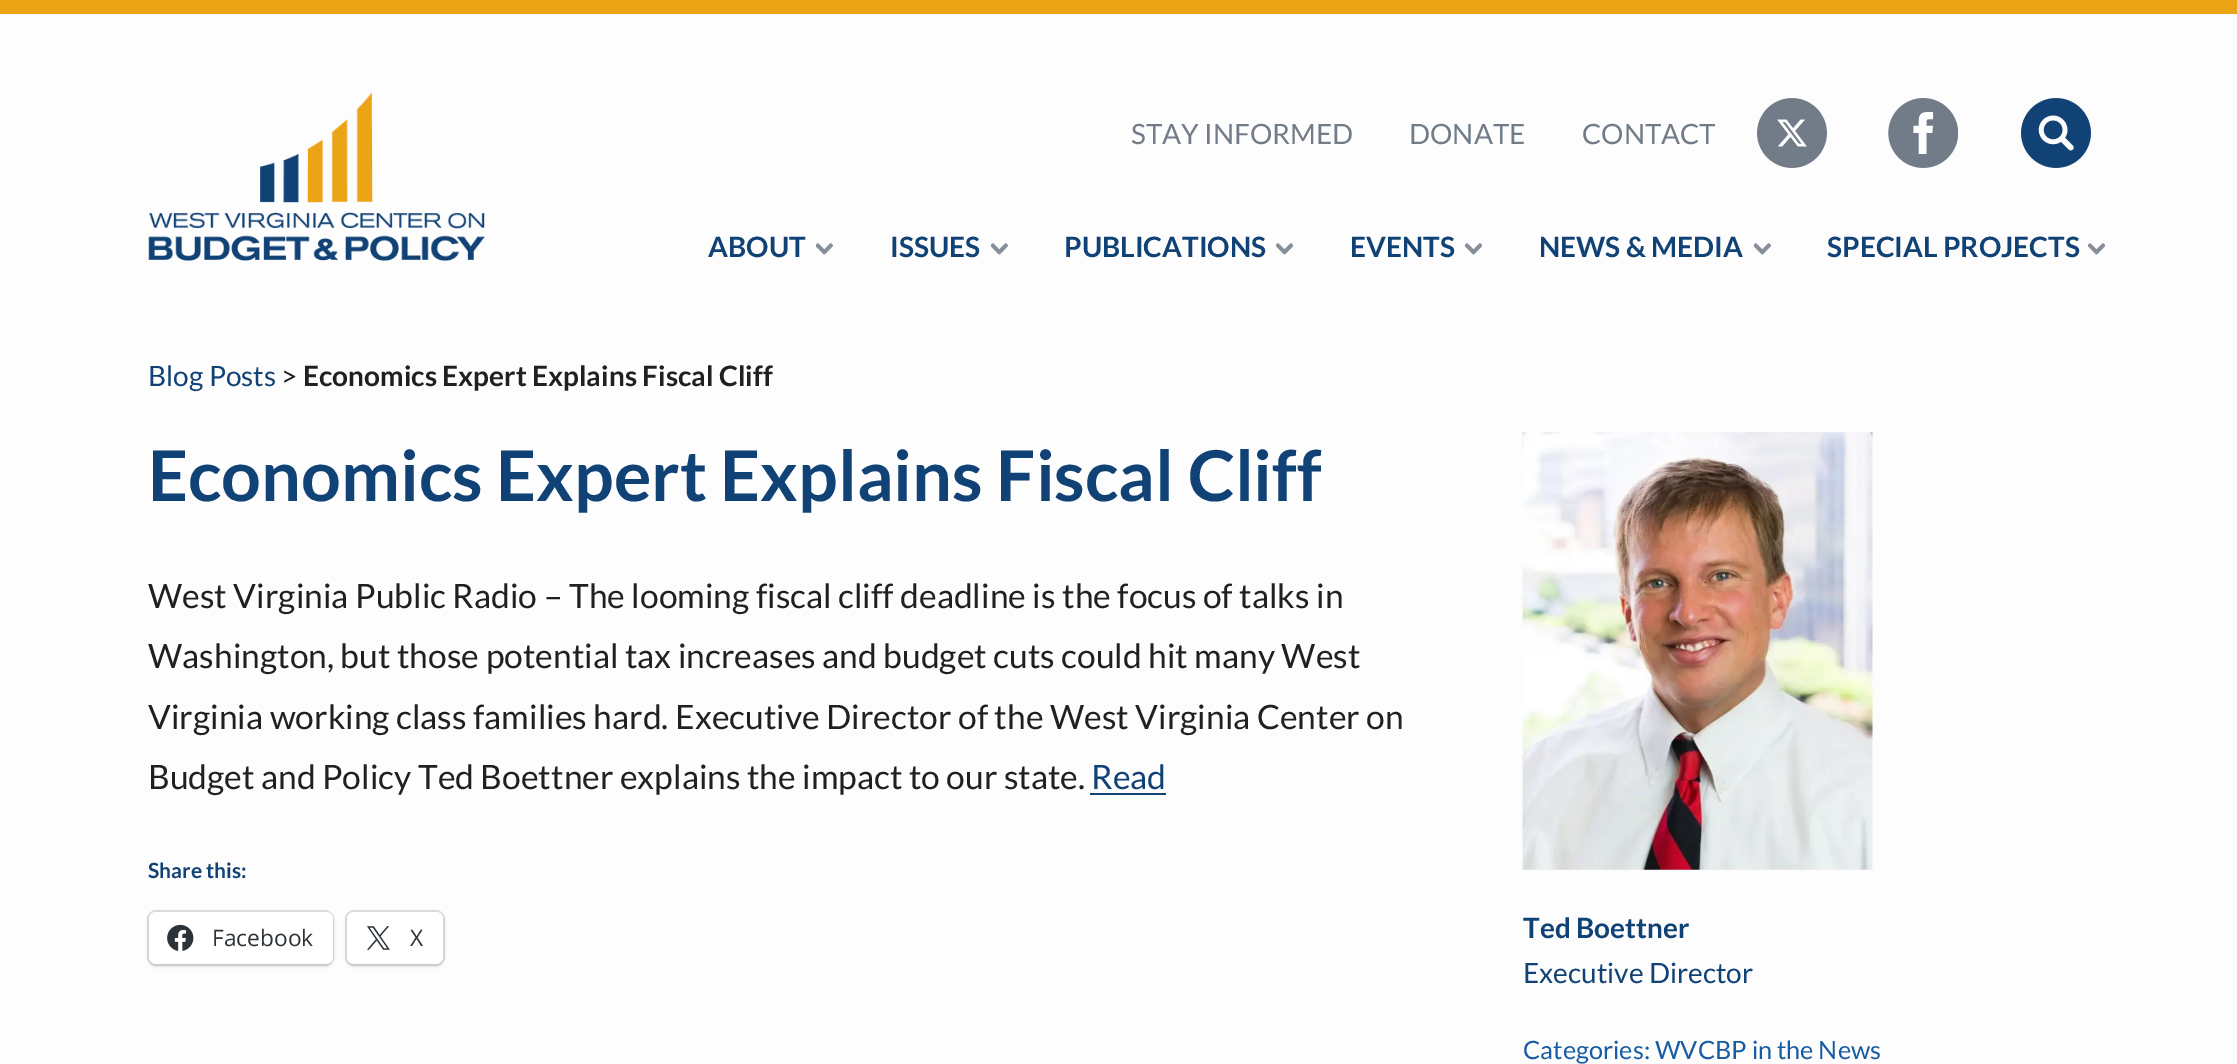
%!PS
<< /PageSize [2237 1064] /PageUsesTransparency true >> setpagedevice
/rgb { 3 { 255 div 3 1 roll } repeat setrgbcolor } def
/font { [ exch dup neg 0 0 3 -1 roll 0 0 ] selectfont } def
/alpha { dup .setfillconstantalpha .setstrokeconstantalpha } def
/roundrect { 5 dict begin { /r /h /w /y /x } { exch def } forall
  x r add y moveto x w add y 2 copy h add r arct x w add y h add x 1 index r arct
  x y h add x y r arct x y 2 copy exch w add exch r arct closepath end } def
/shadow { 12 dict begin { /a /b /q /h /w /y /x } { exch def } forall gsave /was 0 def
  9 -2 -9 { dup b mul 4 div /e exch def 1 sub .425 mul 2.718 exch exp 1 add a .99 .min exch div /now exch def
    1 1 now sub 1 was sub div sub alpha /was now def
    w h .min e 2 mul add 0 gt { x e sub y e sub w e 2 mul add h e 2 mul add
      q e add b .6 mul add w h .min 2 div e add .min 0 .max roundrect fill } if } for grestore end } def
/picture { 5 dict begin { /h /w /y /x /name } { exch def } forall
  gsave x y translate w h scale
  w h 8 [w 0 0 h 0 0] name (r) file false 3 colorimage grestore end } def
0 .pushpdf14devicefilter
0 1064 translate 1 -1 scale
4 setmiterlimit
253 253 253 rgb
0 0 2237 1064 rectfill
235 164 22 rgb
0 0 2237 14 rectfill
(img/1.rgb) 148 92 337 169 picture
(img/2.rgb) 1757 98 70 70 picture
(img/3.rgb) 1888 98 70 70 picture
(img/4.rgb) 2021 98 70 70 picture
(img/5.rgb) 816 243 17 12 picture
(img/5.rgb) 991 243 17 12 picture
(img/6.rgb) 1276 243 17 12 picture
(img/6.rgb) 1465 243 17 12 picture
(img/5.rgb) 1754 243 17 12 picture
(img/6.rgb) 2088 243 17 12 picture
17 66 118 rgb
1090 793 76 2 rectfill
223 223 223 rgb
2 setlinewidth
148 911 185 54 8 roundrect stroke
0 0 0 rgb
149 914 184 52 7 2 0.12 shadow
255 255 255 rgb
149 912 184 52 7 roundrect fill
(img/7.rgb) 167 924 27 27 picture
223 223 223 rgb
346 911 98 54 8 roundrect stroke
0 0 0 rgb
347 914 96 52 7 2 0.12 shadow
255 255 255 rgb
347 912 96 52 7 roundrect fill
(img/8.rgb) 367 926 23 24 picture
(img/9.rgb) 1522 432 351 438 picture
/Lato-Regular 28 font
113 124 136 rgb
[
  [(STAY INFORMED) 1131 144]
  [(DONATE) 1409 144]
  [(CONTACT) 1582 144]
] { aload pop moveto show } forall
/Lato-Bold 28 font
17 66 118 rgb
[
  [(ABOUT) 708 257]
  [(ISSUES) 890 257]
  [(PUBLICATIONS) 1064 257]
  [(EVENTS) 1350 257]
  [(NEWS & MEDIA) 1539 257]
  [(SPECIAL PROJECTS) 1827 257]
] { aload pop moveto show } forall
/Lato-Regular 28 font
148 386 moveto (Blog Posts) show
32 32 32 rgb
281 386 moveto (>) show
/Lato-Bold 28 font
303 386 moveto (Economics Expert Explains Fiscal Cliff) show
/Lato-Bold 70 font
17 66 118 rgb
148 501 moveto (Economics Expert Explains Fiscal Cliff) show
/Lato-Regular 33.6 font
32 32 32 rgb
[
  [(West Virginia Public Radio – The looming fiscal cliff deadline is the focus of talks in) 148 608]
  [(Washington, but those potential tax increases and budget cuts could hit many West) 148 668]
  [(Virginia working class families hard. Executive Director of the West Virginia Center on) 148 729]
  [(Budget and Policy Ted Boettner explains the impact to our state.) 148 789]
] { aload pop moveto show } forall
17 66 118 rgb
1091 789 moveto (Read) show
/Lato-Bold 21 font
148 878 moveto (Share this:) show
/OpenSans-Regular 22.75 font
44 51 56 rgb
212 946 moveto (Facebook) show
410 946 moveto (X) show
/Lato-Bold 28 font
17 66 118 rgb
1523 938 moveto (Ted Boettner) show
/Lato-Regular 28 font
1523 983 moveto (Executive Director) show
/Lato-Regular 25.25 font
23 91 163 rgb
1523 1059 moveto (Categories: WVCBP in the News) show
.poppdf14devicefilter showpage
